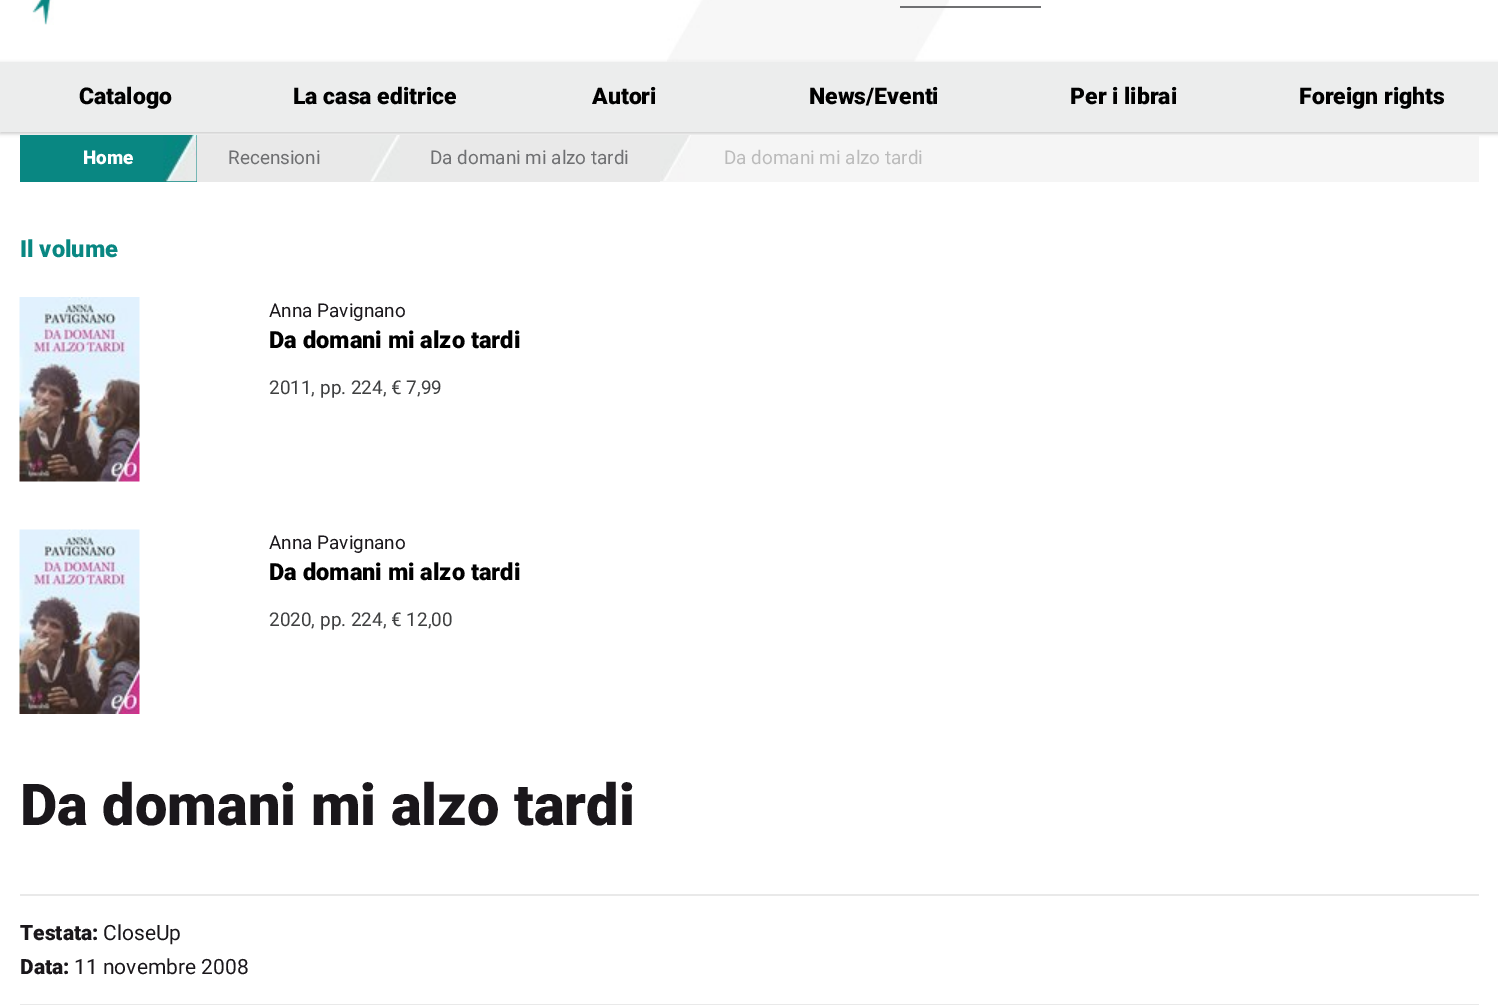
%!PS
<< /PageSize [1498 1005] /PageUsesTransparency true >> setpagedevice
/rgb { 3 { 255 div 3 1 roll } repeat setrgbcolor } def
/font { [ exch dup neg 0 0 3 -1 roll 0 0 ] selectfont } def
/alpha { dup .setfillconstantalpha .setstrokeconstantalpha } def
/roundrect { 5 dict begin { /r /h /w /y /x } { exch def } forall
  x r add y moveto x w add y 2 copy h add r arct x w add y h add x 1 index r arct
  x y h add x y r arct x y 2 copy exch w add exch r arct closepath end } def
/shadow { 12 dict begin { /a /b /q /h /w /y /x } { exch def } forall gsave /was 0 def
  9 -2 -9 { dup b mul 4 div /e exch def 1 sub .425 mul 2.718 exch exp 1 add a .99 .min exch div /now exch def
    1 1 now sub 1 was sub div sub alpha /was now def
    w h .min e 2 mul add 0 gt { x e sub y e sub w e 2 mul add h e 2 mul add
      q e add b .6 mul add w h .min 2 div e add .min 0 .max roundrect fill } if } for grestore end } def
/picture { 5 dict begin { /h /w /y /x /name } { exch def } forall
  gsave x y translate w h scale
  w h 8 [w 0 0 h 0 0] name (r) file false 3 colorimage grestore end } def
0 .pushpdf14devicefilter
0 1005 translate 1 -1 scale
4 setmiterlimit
255 255 255 rgb
0 0 1498 1005 rectfill
(img/1.rgb) 667 0 282 62 picture
(img/2.rgb) 32 0 22 25 picture
111 112 114 rgb
900 6 141 2 rectfill
0 0 0 rgb
0 63 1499 71 0 1.5 0.12 shadow
0 63 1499 71 0 2 0.06 shadow
[
  [0 62 1498 70 236 237 237]
  [660 136 819 46 245 245 245]
  [20 135 177 47 9 135 130]
] { aload pop rgb rectfill } forall
(img/3.rgb) 163 135 34 47 picture
233 233 233 rgb
197 135 463 47 rectfill
(img/4.rgb) 370 135 30 47 picture
(img/5.rgb) 660 135 31 46 picture
(img/6.rgb) 19 297 121 185 picture
(img/7.rgb) 19 529 121 185 picture
20 894 1459 2 rectfill
20 1004 1459 1 rectfill
/Roboto-Black 23 font
0 0 0 rgb
[
  [(Catalogo) 79 104]
  [(La casa editrice) 293 104]
  [(Autori) 592 104]
  [(News/Eventi) 809 104]
  [(Per i librai) 1070 104]
  [(Foreign rights) 1299 104]
] { aload pop moveto show } forall
/Roboto-Black 18.9 font
255 255 255 rgb
83 164 moveto (Home) show
/Roboto-Regular 18.9 font
111 112 114 rgb
228 164 moveto (Recensioni) show
430 164 moveto (Da domani mi alzo tardi) show
187 187 187 rgb
724 164 moveto (Da domani mi alzo tardi) show
/Roboto-Black 23.6 font
9 135 130 rgb
20 257 moveto (Il volume) show
/Roboto-Regular 18.9 font
26 23 27 rgb
269 317 moveto (Anna Pavignano) show
/Roboto-Black 23.6 font
0 0 0 rgb
269 348 moveto (Da domani mi alzo tardi) show
/Roboto-Regular 18.9 font
62 63 64 rgb
269 394 moveto (2011, pp. 224, € 7,99) show
26 23 27 rgb
269 549 moveto (Anna Pavignano) show
/Roboto-Black 23.6 font
0 0 0 rgb
269 580 moveto (Da domani mi alzo tardi) show
/Roboto-Regular 18.9 font
62 63 64 rgb
269 626 moveto (2020, pp. 224, € 12,00) show
/Roboto-Black 57.75 font
26 23 27 rgb
20 825 moveto (Da domani mi alzo tardi) show
/Roboto-Black 21 font
20 940 moveto (Testata:) show
/Roboto-Regular 21 font
103 940 moveto (CloseUp) show
/Roboto-Black 21 font
20 974 moveto (Data:) show
/Roboto-Regular 21 font
74 974 moveto (11 novembre 2008) show
.poppdf14devicefilter showpage
